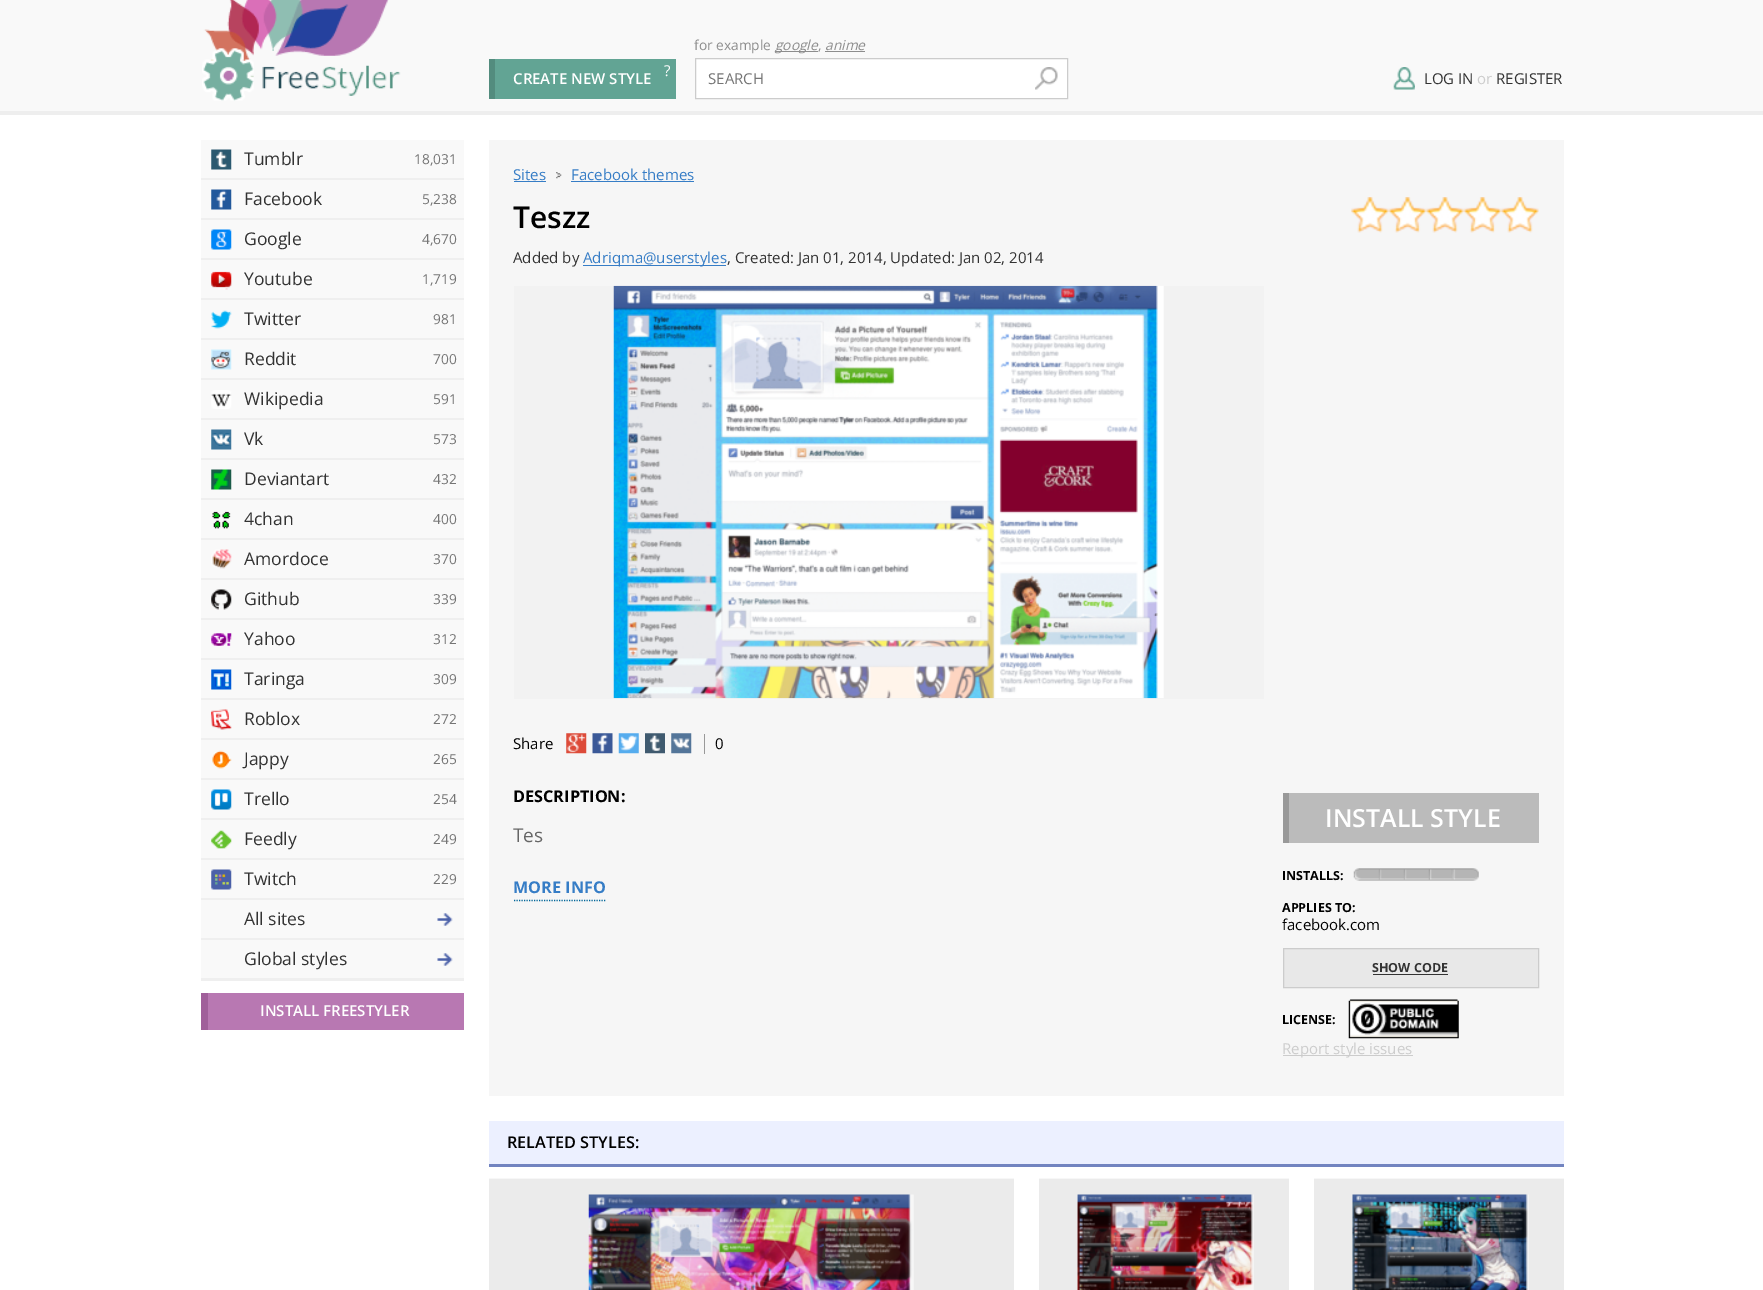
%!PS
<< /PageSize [1763 1290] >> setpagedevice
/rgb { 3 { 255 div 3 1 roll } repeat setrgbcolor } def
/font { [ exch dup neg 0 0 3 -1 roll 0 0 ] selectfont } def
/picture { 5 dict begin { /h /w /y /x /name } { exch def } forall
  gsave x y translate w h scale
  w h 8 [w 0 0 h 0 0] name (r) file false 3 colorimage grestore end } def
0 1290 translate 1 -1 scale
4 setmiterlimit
255 255 255 rgb
0 0 1763 1290 rectfill
249 249 249 rgb
0 0 1763 111 rectfill
238 238 238 rgb
0 111 1763 4 rectfill
(img/1.rgb) 202 0 199 101 picture
[
  [495 59 181 40 98 164 148]
  [489 59 6 40 83 140 126]
  [775 51 43 1 141 141 141]
  [825 51 40 1 141 141 141]
] { aload pop rgb rectfill } forall
255 255 255 rgb
695.5 58.5 moveto 1067.5 58.5 lineto 1067.5 98.5 lineto 695.5 98.5 lineto closepath gsave fill grestore
204 204 204 rgb
stroke
(img/2.rgb) 1035 67 23 23 picture
(img/3.rgb) 1393 67 22 23 picture
[
  [1314 1178 250 1 247 247 247]
  [1039 1178 250 1 247 247 247]
  [489 1178 525 1 247 247 247]
  [201 140 263 38 249 249 249]
  [201 178 263 2 239 239 239]
] { aload pop rgb rectfill } forall
(img/4.rgb) 211 149 21 21 picture
249 249 249 rgb
201 180 263 38 rectfill
239 239 239 rgb
201 218 263 2 rectfill
(img/5.rgb) 211 189 21 21 picture
249 249 249 rgb
201 220 263 38 rectfill
239 239 239 rgb
201 258 263 2 rectfill
(img/6.rgb) 211 229 21 21 picture
249 249 249 rgb
201 260 263 38 rectfill
239 239 239 rgb
201 298 263 2 rectfill
(img/7.rgb) 211 271 21 19 picture
249 249 249 rgb
201 300 263 38 rectfill
239 239 239 rgb
201 338 263 2 rectfill
(img/8.rgb) 211 310 21 19 picture
249 249 249 rgb
201 340 263 38 rectfill
239 239 239 rgb
201 378 263 2 rectfill
(img/9.rgb) 211 349 21 21 picture
249 249 249 rgb
201 380 263 38 rectfill
239 239 239 rgb
201 418 263 2 rectfill
(img/10.rgb) 211 390 21 19 picture
249 249 249 rgb
201 420 263 38 rectfill
239 239 239 rgb
201 458 263 2 rectfill
(img/11.rgb) 211 429 21 21 picture
249 249 249 rgb
201 460 263 38 rectfill
239 239 239 rgb
201 498 263 2 rectfill
(img/12.rgb) 211 469 21 21 picture
249 249 249 rgb
201 500 263 38 rectfill
239 239 239 rgb
201 538 263 2 rectfill
(img/13.rgb) 212 511 19 18 picture
249 249 249 rgb
201 540 263 38 rectfill
239 239 239 rgb
201 578 263 2 rectfill
(img/14.rgb) 211 549 21 20 picture
249 249 249 rgb
201 580 263 38 rectfill
239 239 239 rgb
201 618 263 2 rectfill
(img/15.rgb) 211 589 21 21 picture
249 249 249 rgb
201 620 263 38 rectfill
239 239 239 rgb
201 658 263 2 rectfill
(img/16.rgb) 211 633 21 13 picture
249 249 249 rgb
201 660 263 38 rectfill
239 239 239 rgb
201 698 263 2 rectfill
(img/17.rgb) 211 669 21 21 picture
249 249 249 rgb
201 700 263 38 rectfill
239 239 239 rgb
201 738 263 2 rectfill
(img/18.rgb) 211 709 21 21 picture
249 249 249 rgb
201 740 263 38 rectfill
239 239 239 rgb
201 778 263 2 rectfill
(img/19.rgb) 212 750 20 19 picture
249 249 249 rgb
201 780 263 38 rectfill
239 239 239 rgb
201 818 263 2 rectfill
(img/20.rgb) 211 789 21 21 picture
249 249 249 rgb
201 820 263 38 rectfill
239 239 239 rgb
201 858 263 2 rectfill
(img/21.rgb) 211 830 21 19 picture
249 249 249 rgb
201 860 263 38 rectfill
239 239 239 rgb
201 898 263 2 rectfill
(img/22.rgb) 211 869 21 21 picture
249 249 249 rgb
201 900 263 38 rectfill
239 239 239 rgb
201 938 263 2 rectfill
(img/23.rgb) 437 913 16 13 picture
249 249 249 rgb
201 940 263 38 rectfill
239 239 239 rgb
201 978 263 3 rectfill
(img/23.rgb) 437 953 16 13 picture
[
  [208 993 256 37 184 120 178]
  [201 993 7 37 160 95 154]
  [489 140 1075 956 246 246 246]
  [514 181 32 1 54 125 198]
] { aload pop rgb rectfill } forall
(img/24.rgb) 556 172 6 7 picture
571 181 123 1 rectfill
(img/25.rgb) 1351 197 188 36 picture
583 265 143 1 rectfill
242 242 242 rgb
514 286 750 413 rectfill
(img/26.rgb) 613 285 551 414 picture
(img/27.rgb) 566 733 21 21 picture
(img/28.rgb) 592 733 21 21 picture
(img/29.rgb) 618 733 21 21 picture
(img/30.rgb) 645 733 20 21 picture
(img/31.rgb) 671 733 21 21 picture
153 153 153 rgb
704 734 1 20 rectfill
0 102 153 rgb
1.2 setlinewidth
[1.25 1.25] 0 setdash
514 900.5 moveto 606 900.5 lineto stroke
187 187 187 rgb
1289 793 250 50 rectfill
153 153 153 rgb
1283 793 6 50 rectfill
(img/32.rgb) 1353 868 126 13 picture
232 232 232 rgb
1283.5 948.5 moveto 1538.5 948.5 lineto 1538.5 987.5 lineto 1283.5 987.5 lineto closepath gsave fill grestore
204 204 204 rgb
1 setlinewidth
[] 0 setdash
stroke
51 51 51 rgb
1373 974 75 1 rectfill
(img/33.rgb) 1348 999 111 40 picture
[
  [1283 1055 130 1 204 204 204]
  [489 1121 1075 43 236 240 255]
  [489 1164 1075 3 114 132 192]
  [489 1179 525 111 235 235 235]
] { aload pop rgb rectfill } forall
(img/34.rgb) 588 1194 326 96 picture
1039 1179 250 111 rectfill
(img/35.rgb) 1077 1194 177 96 picture
1314 1179 250 111 rectfill
(img/36.rgb) 1352 1194 177 96 picture
/OpenSans-Regular 15 font
255 255 255 rgb
664 76 moveto (?) show
/OpenSans-SemiBold 15 font
513 84 moveto (CREATE NEW STYLE) show
/OpenSans-Regular 13.75 font
141 141 141 rgb
694 50 moveto (for example) show
/OpenSans-Italic 13.75 font
775 50 moveto (google) show
/OpenSans-Regular 13.75 font
818 50 moveto (,) show
/OpenSans-Italic 13.75 font
825 50 moveto (anime) show
/OpenSans-Regular 15 font
117 117 117 rgb
708 84 moveto (SEARCH) show
51 51 51 rgb
1424 84 moveto (LOG IN) show
205 205 205 rgb
1477 84 moveto (or) show
51 51 51 rgb
1496 84 moveto (REGISTER) show
/OpenSans-Regular 17.5 font
244 165 moveto (Tumblr) show
/OpenSans-Regular 13.75 font
117 117 117 rgb
414 164 moveto (18,031) show
/OpenSans-Regular 17.5 font
51 51 51 rgb
244 205 moveto (Facebook) show
/OpenSans-Regular 13.75 font
117 117 117 rgb
422 204 moveto (5,238) show
/OpenSans-Regular 17.5 font
51 51 51 rgb
244 245 moveto (Google) show
/OpenSans-Regular 13.75 font
117 117 117 rgb
422 244 moveto (4,670) show
/OpenSans-Regular 17.5 font
51 51 51 rgb
244 285 moveto (Youtube) show
/OpenSans-Regular 13.75 font
117 117 117 rgb
422 284 moveto (1,719) show
/OpenSans-Regular 17.5 font
51 51 51 rgb
244 325 moveto (Twitter) show
/OpenSans-Regular 13.75 font
117 117 117 rgb
433 324 moveto (981) show
/OpenSans-Regular 17.5 font
51 51 51 rgb
244 365 moveto (Reddit) show
/OpenSans-Regular 13.75 font
117 117 117 rgb
433 364 moveto (700) show
/OpenSans-Regular 17.5 font
51 51 51 rgb
244 405 moveto (Wikipedia) show
/OpenSans-Regular 13.75 font
117 117 117 rgb
433 404 moveto (591) show
/OpenSans-Regular 17.5 font
51 51 51 rgb
244 445 moveto (Vk) show
/OpenSans-Regular 13.75 font
117 117 117 rgb
433 444 moveto (573) show
/OpenSans-Regular 17.5 font
51 51 51 rgb
244 485 moveto (Deviantart) show
/OpenSans-Regular 13.75 font
117 117 117 rgb
433 484 moveto (432) show
/OpenSans-Regular 17.5 font
51 51 51 rgb
244 525 moveto (4chan) show
/OpenSans-Regular 13.75 font
117 117 117 rgb
433 524 moveto (400) show
/OpenSans-Regular 17.5 font
51 51 51 rgb
244 565 moveto (Amordoce) show
/OpenSans-Regular 13.75 font
117 117 117 rgb
433 564 moveto (370) show
/OpenSans-Regular 17.5 font
51 51 51 rgb
244 605 moveto (Github) show
/OpenSans-Regular 13.75 font
117 117 117 rgb
433 604 moveto (339) show
/OpenSans-Regular 17.5 font
51 51 51 rgb
244 645 moveto (Yahoo) show
/OpenSans-Regular 13.75 font
117 117 117 rgb
433 644 moveto (312) show
/OpenSans-Regular 17.5 font
51 51 51 rgb
244 685 moveto (Taringa) show
/OpenSans-Regular 13.75 font
117 117 117 rgb
433 684 moveto (309) show
/OpenSans-Regular 17.5 font
51 51 51 rgb
244 725 moveto (Roblox) show
/OpenSans-Regular 13.75 font
117 117 117 rgb
433 724 moveto (272) show
/OpenSans-Regular 17.5 font
51 51 51 rgb
244 765 moveto (Jappy) show
/OpenSans-Regular 13.75 font
117 117 117 rgb
433 764 moveto (265) show
/OpenSans-Regular 17.5 font
51 51 51 rgb
244 805 moveto (Trello) show
/OpenSans-Regular 13.75 font
117 117 117 rgb
433 804 moveto (254) show
/OpenSans-Regular 17.5 font
51 51 51 rgb
244 845 moveto (Feedly) show
/OpenSans-Regular 13.75 font
117 117 117 rgb
433 844 moveto (249) show
/OpenSans-Regular 17.5 font
51 51 51 rgb
244 885 moveto (Twitch) show
/OpenSans-Regular 13.75 font
117 117 117 rgb
433 884 moveto (229) show
/OpenSans-Regular 17.5 font
51 51 51 rgb
244 925 moveto (All sites) show
244 965 moveto (Global styles) show
/OpenSans-SemiBold 15 font
255 255 255 rgb
260 1016 moveto (INSTALL FREESTYLER) show
/OpenSans-Regular 15 font
54 125 198 rgb
513 180 moveto (Sites) show
571 180 moveto (Facebook themes) show
/OpenSans-SemiBold 30 font
0 0 0 rgb
513 228 moveto (Teszz) show
/OpenSans-Regular 15 font
51 51 51 rgb
513 263 moveto (Added by) show
54 125 198 rgb
583 263 moveto (Adriqma@userstyles) show
51 51 51 rgb
727 263 moveto (, Created: Jan 01, 2014, Updated: Jan 02, 2014) show
0 0 0 rgb
513 749 moveto (Share) show
715 749 moveto (0) show
/OpenSans-Bold 16.25 font
513 802 moveto (DESCRIPTION:) show
/OpenSans-Regular 19 font
102 102 102 rgb
513 842 moveto (Tes) show
/OpenSans-Bold 16.25 font
54 125 198 rgb
513 893 moveto (MORE INFO) show
/OpenSans-SemiBold 25 font
255 255 255 rgb
1325 827 moveto (INSTALL STYLE) show
/OpenSans-Bold 12.5 font
0 0 0 rgb
1282 880 moveto (INSTALLS:) show
1282 912 moveto (APPLIES TO:) show
/OpenSans-Regular 15 font
1282 930 moveto (facebook.com) show
/OpenSans-Bold 12.5 font
51 51 51 rgb
1372 972 moveto (SHOW CODE) show
0 0 0 rgb
1282 1024 moveto (LICENSE:) show
/OpenSans-Regular 15 font
205 205 205 rgb
1282 1054 moveto (Report style issues) show
/OpenSans-SemiBold 16.25 font
0 0 0 rgb
507 1148 moveto (RELATED STYLES:) show
showpage
